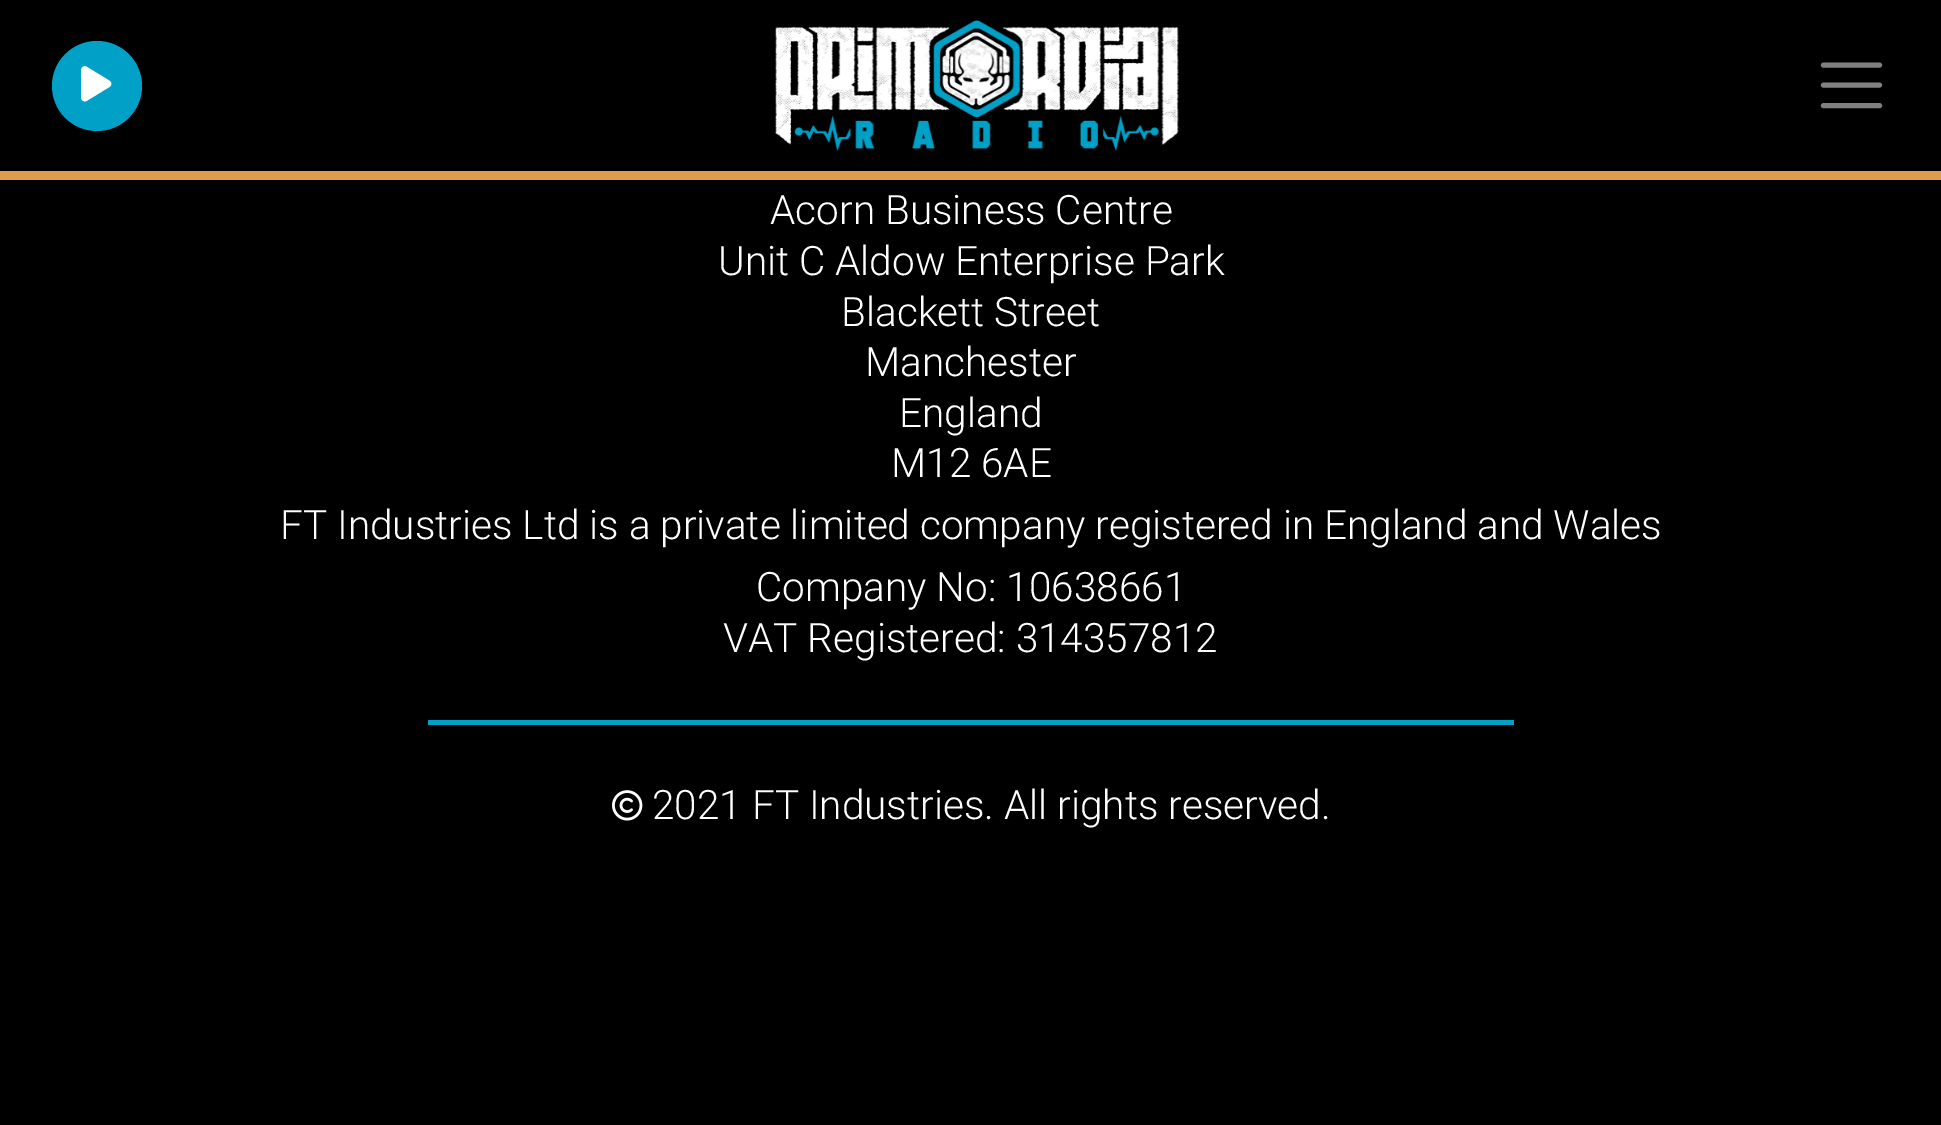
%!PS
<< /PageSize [1941 1125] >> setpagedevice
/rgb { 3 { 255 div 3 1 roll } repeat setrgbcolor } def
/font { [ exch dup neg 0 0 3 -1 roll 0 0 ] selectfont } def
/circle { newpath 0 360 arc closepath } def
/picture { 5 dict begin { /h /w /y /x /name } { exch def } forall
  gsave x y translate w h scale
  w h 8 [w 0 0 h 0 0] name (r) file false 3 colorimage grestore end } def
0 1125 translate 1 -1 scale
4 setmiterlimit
0 0 0 rgb
0 0 1941 1125 rectfill
223 156 77 rgb
0 171 1941 9 rectfill
1 160 198 rgb
97 86 45 circle fill
(img/1.rgb) 81 66 31 36 picture
(img/2.rgb) 775 20 404 131 picture
128 128 128 rgb
5.1 setlinewidth
1 setlinecap
1823.5 65 moveto 1879.5 65 lineto 1823.5 85 moveto 1879.5 85 lineto 1823.5 105.5 moveto 1879.5 105.5 lineto stroke
1 160 198 rgb
428 720 1086 5 rectfill
(img/3.rgb) 612 790 31 31 picture
/Roboto-Light 40.5 font
255 255 255 rgb
[
  [(Acorn Business Centre) 770 224]
  [(Unit C Aldow Enterprise Park) 718 275]
  [(Blackett Street) 841 326]
  [(Manchester) 865 376]
  [(England) 899 427]
  [(M12 6AE) 891 477]
  [(FT Industries Ltd is a private limited company registered in England and Wales) 280 539]
  [(Company No: 10638661) 756 601]
  [(VAT Registered: 314357812) 723 652]
  [(2021 FT Industries. All rights reserved.) 652 819]
] { aload pop moveto show } forall
showpage
